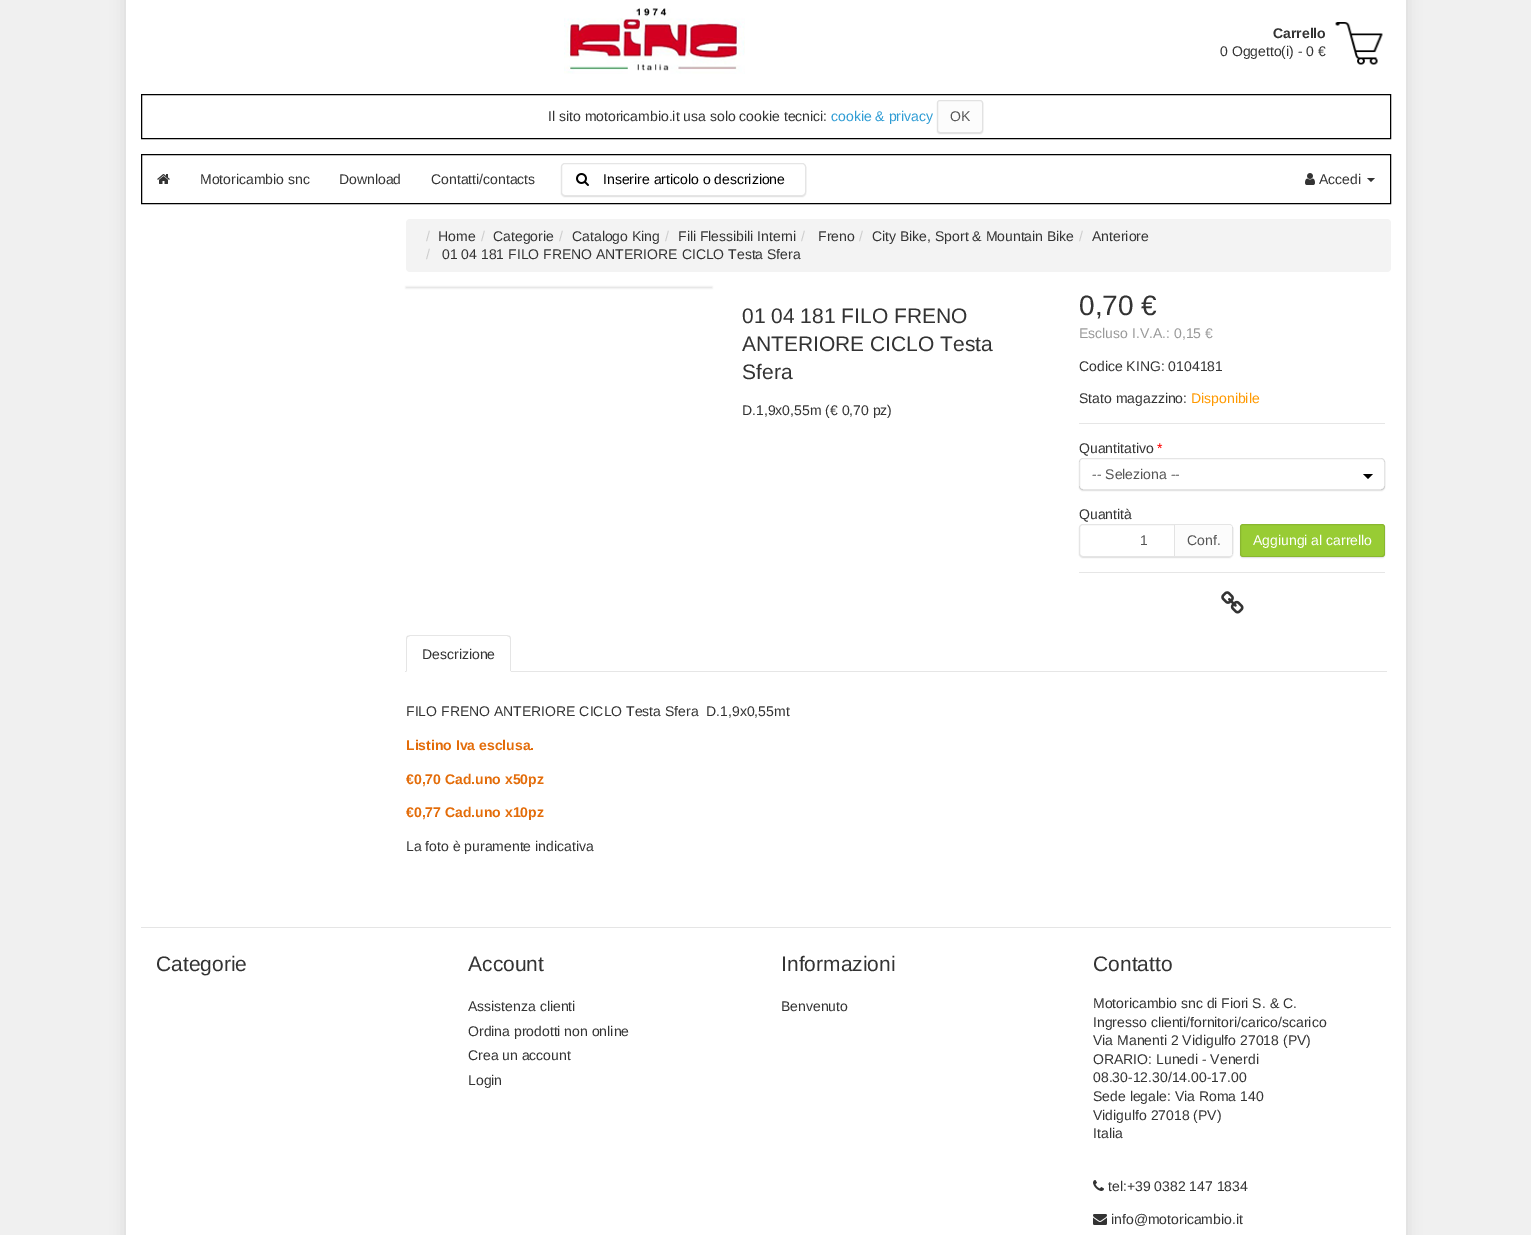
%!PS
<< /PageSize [1531 1235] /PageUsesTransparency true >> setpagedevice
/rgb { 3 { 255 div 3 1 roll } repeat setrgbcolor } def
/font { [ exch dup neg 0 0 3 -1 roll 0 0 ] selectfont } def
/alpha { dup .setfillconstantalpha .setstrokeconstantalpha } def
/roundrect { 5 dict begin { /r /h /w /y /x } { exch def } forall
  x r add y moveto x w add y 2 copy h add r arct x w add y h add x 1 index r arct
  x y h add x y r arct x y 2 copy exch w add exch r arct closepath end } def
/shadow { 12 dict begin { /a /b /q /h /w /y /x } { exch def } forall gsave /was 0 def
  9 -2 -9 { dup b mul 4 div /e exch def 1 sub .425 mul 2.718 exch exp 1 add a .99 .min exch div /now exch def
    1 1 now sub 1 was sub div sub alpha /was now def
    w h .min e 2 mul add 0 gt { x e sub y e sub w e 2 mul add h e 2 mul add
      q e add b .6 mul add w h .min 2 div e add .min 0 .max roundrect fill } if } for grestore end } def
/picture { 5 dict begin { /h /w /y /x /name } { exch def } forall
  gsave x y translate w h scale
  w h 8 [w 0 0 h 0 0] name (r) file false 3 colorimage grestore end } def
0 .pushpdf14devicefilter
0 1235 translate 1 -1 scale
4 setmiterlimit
240 240 240 rgb
0 0 1531 1235 rectfill
0 0 0 rgb
126 -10 1280 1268 0 7.5 0.1 shadow
255 255 255 rgb
126 0 1280 1235 rectfill
(img/1.rgb) 564 8 181 66 picture
(img/2.rgb) 1335 22 48 43 picture
0 0 0 rgb
141.5 94.5 1249 44 rectstroke
937 101 46 33 3 0.5 0.1 shadow
252 252 252 rgb
937 100 46 33 3 roundrect fill
0.1 alpha
0 0 0 rgb
937.5 100.5 45 32 2.5 roundrect stroke
1 alpha
141.5 154.5 1249 49 rectstroke
(img/3.rgb) 157 174 13 10 picture
561 164 245 33 4 0.5 0.1 shadow
255 255 255 rgb
561 163 245 33 4 roundrect fill
0.1 alpha
0 0 0 rgb
561.5 163.5 244 32 3.5 roundrect stroke
1 alpha
(img/4.rgb) 576 173 13 13 picture
(img/5.rgb) 1305 173 10 12 picture
51 51 51 rgb
1367 178 moveto 1375 178 lineto 1371 182 lineto closepath fill
243 243 243 rgb
406 219 985 53 4 roundrect fill
0 0 0 rgb
406 287 306 1 0 1 0.15 shadow
230 230 230 rgb
1079 423 306 1 rectfill
0 0 0 rgb
1363 474 moveto 1373 474 lineto 1368 479 lineto closepath fill
gsave
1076 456 moveto 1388 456 lineto 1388 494 lineto 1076 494 lineto closepath 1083 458 moveto 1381 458 lineto 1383 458 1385 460 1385 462 curveto 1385 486 lineto 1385 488 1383 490 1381 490 curveto 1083 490 lineto 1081 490 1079 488 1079 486 curveto 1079 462 lineto 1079 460 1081 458 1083 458 curveto closepath eoclip newpath
1079 459 306 32 4 0.5 0.1 shadow
grestore
0.1 alpha
1079.5 458.5 305 31 3.5 roundrect stroke
1 alpha
1079 525 154 33 4 0.5 0.1 shadow
255 255 255 rgb
1079 524 154 33 4 roundrect fill
0.1 alpha
0 0 0 rgb
1079.5 524.5 153 32 3.5 roundrect stroke
1 alpha
252 252 252 rgb
1174 525 moveto 1229 525 lineto 1231 525 1233 527 1233 529 curveto 1233 552 lineto 1233 554 1231 556 1229 556 curveto 1174 556 lineto closepath fill
0.1 alpha
0 0 0 rgb
1232 527 1 27 rectfill
1 alpha
227 227 227 rgb
1174 525 1 31 rectfill
0 0 0 rgb
1240 525 145 33 3 0.5 0.1 shadow
152 204 52 rgb
1240 524 145 33 3 roundrect fill
0.1 alpha
0 0 0 rgb
1240.5 524.5 144 32 2.5 roundrect stroke
1 alpha
230 230 230 rgb
1079 572 306 1 rectfill
(img/6.rgb) 1221 591 23 23 picture
405 671 982 1 rectfill
255 255 255 rgb
410 635 moveto 507 635 lineto 509 635 511 637 511 639 curveto 511 672 lineto 406 672 lineto 406 639 lineto 406 637 408 635 410 635 curveto closepath fill
230 230 230 rgb
410 635 moveto 407 636 lineto 408 637 lineto 410 636 lineto 507 636 lineto 509 637 lineto 510 636 lineto 507 635 lineto closepath fill
0.1 alpha
0 0 0 rgb
511 672 moveto 511 639 lineto 511 638 510.5 637 510 636 curveto 509 637 lineto 510 637 510 638 510 639 curveto 510 671 lineto closepath fill
1 alpha
255 255 255 rgb
511 672 moveto 510 671 lineto 407 671 lineto 406 672 lineto closepath fill
0.1 alpha
0 0 0 rgb
406 672 moveto 407 671 lineto 407 639 lineto 407 638 407 637 408 637 curveto 407 636 lineto 406.5 637 406 638 406 639 curveto closepath fill
1 alpha
229 229 229 rgb
141 927 1250 1 rectfill
(img/7.rgb) 1093 1180 11 11 picture
(img/8.rgb) 1093 1214 14 11 picture
/LiberationSans-Bold 14 font
51 51 51 rgb
1273 38 moveto (Carrello) show
/LiberationSans-Regular 14 font
1220 56 moveto (0 Oggetto\(i\) - 0 €) show
548 121 moveto (Il sito motoricambio.it usa solo cookie tecnici:) show
46 156 212 rgb
831 121 moveto (cookie & privacy) show
85 85 85 rgb
950 121 moveto (OK) show
51 51 51 rgb
[
  [(Motoricambio snc) 200 184]
  [(Download) 339 184]
  [(Contatti/contacts) 431 184]
] { aload pop moveto show } forall
0 0 0 rgb
603 184 moveto (Inserire articolo o descrizione) show
51 51 51 rgb
1319 184 moveto (Accedi) show
204 204 204 rgb
426 241 moveto (/) show
51 51 51 rgb
438 241 moveto (Home) show
204 204 204 rgb
481 241 moveto (/) show
51 51 51 rgb
493 241 moveto (Categorie) show
204 204 204 rgb
559 241 moveto (/) show
51 51 51 rgb
572 241 moveto (Catalogo King) show
204 204 204 rgb
665 241 moveto (/) show
51 51 51 rgb
678 241 moveto (Fili Flessibili Interni) show
204 204 204 rgb
801 241 moveto (/) show
51 51 51 rgb
818 241 moveto (Freno) show
204 204 204 rgb
859 241 moveto (/) show
51 51 51 rgb
872 241 moveto (City Bike, Sport & Mountain Bike) show
204 204 204 rgb
1079 241 moveto (/) show
51 51 51 rgb
1092 241 moveto (Anteriore) show
204 204 204 rgb
426 259 moveto (/) show
51 51 51 rgb
442 259 moveto (01 04 181 FILO FRENO ANTERIORE CICLO Testa Sfera) show
/LiberationSans-Regular 21 font
[
  [(01 04 181 FILO FRENO) 742 323]
  [(ANTERIORE CICLO Testa) 742 351]
  [(Sfera) 742 379]
] { aload pop moveto show } forall
/LiberationSans-Regular 14 font
742 415 moveto (D.1,9x0,55m \(€ 0,70 pz\)) show
/LiberationSans-Regular 28 font
1079 315 moveto (0,70 €) show
/LiberationSans-Regular 14 font
153 153 153 rgb
1079 338 moveto (Escluso I.V.A.: 0,15 €) show
51 51 51 rgb
1079 371 moveto (Codice KING: 0104181) show
1079 403 moveto (Stato magazzino:) show
255 153 0 rgb
1191 403 moveto (Disponibile) show
51 51 51 rgb
1079 453 moveto (Quantitativo) show
255 0 0 rgb
1157 453 moveto (*) show
85 85 85 rgb
1092 479 moveto (-- Seleziona --) show
51 51 51 rgb
1079 519 moveto (Quantità) show
85 85 85 rgb
1140 545 moveto (1) show
1187 545 moveto (Conf.) show
255 255 255 rgb
1253 545 moveto (Aggiungi al carrello) show
51 51 51 rgb
422 659 moveto (Descrizione) show
406 716 moveto (FILO FRENO ANTERIORE CICLO Testa Sfera  D.1,9x0,55mt) show
/LiberationSans-Bold 14 font
227 108 9 rgb
[
  [(Listino Iva esclusa.) 406 750]
  [(€0,70 Cad.uno x50pz) 406 784]
  [(€0,77 Cad.uno x10pz) 406 817]
] { aload pop moveto show } forall
/LiberationSans-Regular 14 font
51 51 51 rgb
406 851 moveto (La foto è puramente indicativa) show
/LiberationSans-Regular 21 font
156 971 moveto (Categorie) show
468 971 moveto (Account) show
/LiberationSans-Regular 14 font
[
  [(Assistenza clienti) 468 1011]
  [(Ordina prodotti non online) 468 1036]
  [(Crea un account) 468 1060]
  [(Login) 468 1085]
] { aload pop moveto show } forall
/LiberationSans-Regular 21 font
781 971 moveto (Informazioni) show
/LiberationSans-Regular 14 font
781 1011 moveto (Benvenuto) show
/LiberationSans-Regular 21 font
1093 971 moveto (Contatto) show
/LiberationSans-Regular 14 font
[
  [(Motoricambio snc di Fiori S. & C.) 1093 1008]
  [(Ingresso clienti/fornitori/carico/scarico) 1093 1027]
  [(Via Manenti 2 Vidigulfo 27018 \(PV\)) 1093 1045]
  [(ORARIO: Lunedi - Venerdi) 1093 1064]
  [(08.30-12.30/14.00-17.00) 1093 1082]
  [(Sede legale: Via Roma 140) 1093 1101]
  [(Vidigulfo 27018 \(PV\)) 1093 1120]
  [(Italia) 1093 1138]
  [(tel:+39 0382 147 1834) 1108 1191]
  [(info@motoricambio.it) 1111 1224]
] { aload pop moveto show } forall
.poppdf14devicefilter showpage
